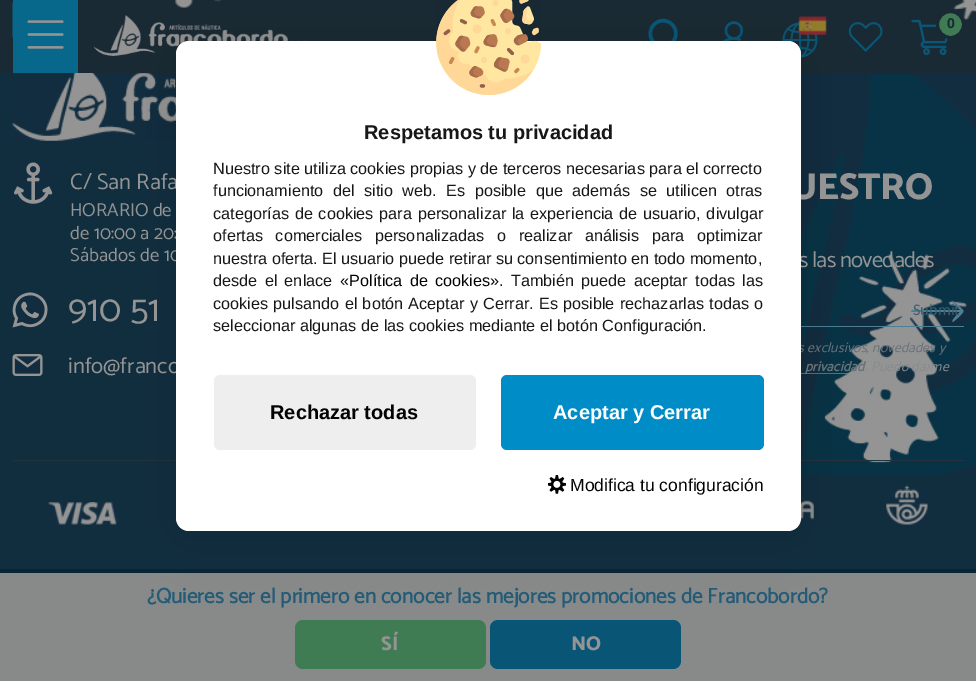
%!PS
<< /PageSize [976 681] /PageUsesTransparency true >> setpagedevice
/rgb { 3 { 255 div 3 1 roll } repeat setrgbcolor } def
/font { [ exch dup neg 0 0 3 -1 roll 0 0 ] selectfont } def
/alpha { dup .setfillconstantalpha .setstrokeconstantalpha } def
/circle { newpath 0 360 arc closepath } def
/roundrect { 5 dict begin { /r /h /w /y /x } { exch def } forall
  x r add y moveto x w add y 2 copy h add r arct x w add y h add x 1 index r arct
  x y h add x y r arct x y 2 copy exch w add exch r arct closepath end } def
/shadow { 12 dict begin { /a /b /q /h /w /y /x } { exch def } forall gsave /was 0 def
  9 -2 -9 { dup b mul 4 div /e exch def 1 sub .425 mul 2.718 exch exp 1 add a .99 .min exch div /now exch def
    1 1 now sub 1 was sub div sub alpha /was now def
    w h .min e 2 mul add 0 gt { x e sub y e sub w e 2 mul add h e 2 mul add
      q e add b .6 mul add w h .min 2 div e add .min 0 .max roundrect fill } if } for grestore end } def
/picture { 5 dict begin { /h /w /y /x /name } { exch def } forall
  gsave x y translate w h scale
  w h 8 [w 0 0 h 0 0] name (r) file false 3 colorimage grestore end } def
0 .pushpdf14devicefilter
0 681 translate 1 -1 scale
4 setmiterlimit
8 38 50 rgb
0 0 976 681 rectfill
25 42 52 rgb
0 0 976 73 rectfill
(img/1.rgb) 174 0 802 21 picture
8 104 140 rgb
13 0 65 73 rectfill
(img/2.rgb) 12 2 1 36 picture
(img/3.rgb) 27 20 37 29 picture
(img/4.rgb) 94 15 216 41 picture
(img/5.rgb) 648 18 30 23 picture
(img/6.rgb) 722 21 22 20 picture
(img/8.rgb) 782 22 36 36 picture
(img/7.rgb) 798 16 29 19 picture
(img/9.rgb) 848 22 35 30 picture
(img/10.rgb) 911 19 37 36 picture
63 123 83 rgb
950.5 24.5 13 circle gsave fill grestore
25 42 52 rgb
3 setlinewidth
stroke
17 46 63 rgb
0 73 976 496 rectfill
(img/13.rgb) 801 73 175 403 picture
(img/14.rgb) 12 73 164 68 picture
[
  [801 326 163 1 76 126 148]
] { aload pop rgb rectfill } forall
0.6 alpha
[
  [801 373 49 1 148 148 148]
] { aload pop rgb rectfill } forall
1 alpha
[
  [13 460 951 1 37 51 60]
] { aload pop rgb rectfill } forall
(img/18.rgb) 48 502 69 23 picture
(img/19.rgb) 800 500 14 20 picture
136 138 138 rgb
0 573 976 108 rectfill
0 0 0 rgb
176 46 625 490 13 24 0.15 shadow
(img/15.rgb) 14 162 39 42 picture
(img/16.rgb) 12 292 36 36 picture
(img/17.rgb) 12 354 31 22 picture
76 126 148 rgb
953 322 moveto 950 321 959 313 960 312 curveto 913 312 lineto 912 312 911 312 911 311 curveto 914 309 914 310 920 310 curveto 960 310 lineto 953 303 lineto 952 302 953 301 953 301 curveto 959 306 lineto 965 312 965 310 959 317 curveto closepath fill
(img/20.rgb) 886 485 42 40 picture
63 123 83 rgb
295 620 191 49 8 roundrect fill
8 85 117 rgb
490 620 191 49 8 roundrect fill
/OpenSans-Bold 13.75 font
25 42 52 rgb
947 28 moveto (0) show
/Catamaran-Regular 22.5 font
148 148 148 rgb
70 189 moveto (C/ San Rafa) show
/Catamaran-Regular 18.75 font
[
  [(HORARIO de) 70 216]
  [(de 10:00 a 20:) 70 239]
  [(Sábados de 10) 70 261]
] { aload pop moveto show } forall
/Catamaran-Regular 37.5 font
68 321 moveto (910 51) show
/Catamaran-Regular 22.5 font
68 373 moveto (info@franco) show
/Catamaran-ExtraBold 37.5 font
790 199 moveto -0.5 0 (UESTRO) ashow
/Catamaran-Regular 22.5 font
799 267 moveto -0.75 0 (s las novedades) ashow
/Carlito-Regular 16.25 font
63 93 108 rgb
913 315 moveto (Submit) show
/Catamaran-Italic 13.75 font
104 114 120 rgb
798 352 moveto 0.15 0 (s exclusivos, novedades y) ashow
255 255 255 rgb
176 41 625 490 13 roundrect fill
(img/12.rgb) 548 475 18 19 picture
/LiberationSans-Regular 17.5 font
2 2 2 rgb
570 491 moveto (Modifica tu configuración) show
0 140 198 rgb
501 375 263 75 6 roundrect fill
/LiberationSans-Bold 20 font
255 255 255 rgb
553 419 moveto (Aceptar y Cerrar) show
238 238 238 rgb
214 375 262 75 6 roundrect fill
2 2 2 rgb
270 419 moveto (Rechazar todas) show
/LiberationSans-Regular 16.25 font
23 23 23 rgb
213 331 moveto (seleccionar algunas de las cookies mediante el botón Configuración.) show
213 309 moveto 0.75 0 32 (cookies pulsando el botón Aceptar y Cerrar. Es posible rechazarlas todas o) widthshow
499 286 moveto 2.75 0 32 (. También puede aceptar todas las) widthshow
2 2 2 rgb
340 286 moveto 2.75 0 32 («Política de cookies») widthshow
23 23 23 rgb
213 286 moveto 2.75 0 32 (desde el enlace) widthshow
213 264 moveto (nuestra oferta. El usuario puede retirar su consentimiento en todo momento,) show
213 241 moveto 8.25 0 32 (ofertas comerciales personalizadas o realizar análisis para optimizar) widthshow
213 219 moveto 1.25 0 32 (categorías de cookies para personalizar la experiencia de usuario, divulgar) widthshow
213 196 moveto 5 0 32 (funcionamiento del sitio web. Es posible que además se utilicen otras) widthshow
213 174 moveto (Nuestro site utiliza cookies propias y de terceros necesarias para el correcto) show
/LiberationSans-Bold 20 font
364 139 moveto (Respetamos tu privacidad) show
(img/11.rgb) 436 0 105 95 picture
/Catamaran-BoldItalic 13.75 font
104 114 120 rgb
805 371 moveto 0.15 0 (privacidad) ashow
/Catamaran-Italic 13.75 font
135 138 140 rgb
865 371 moveto 0.15 0 (. Puedo darme) ashow
/Catamaran-Bold 21.25 font
36 92 120 rgb
147 603 moveto (¿Quieres ser el primero en conocer las mejores promociones de Francobordo?) show
/Catamaran-ExtraBold 20 font
148 148 148 rgb
381 650 moveto (SÍ) show
571 650 moveto (NO) show
.poppdf14devicefilter showpage
